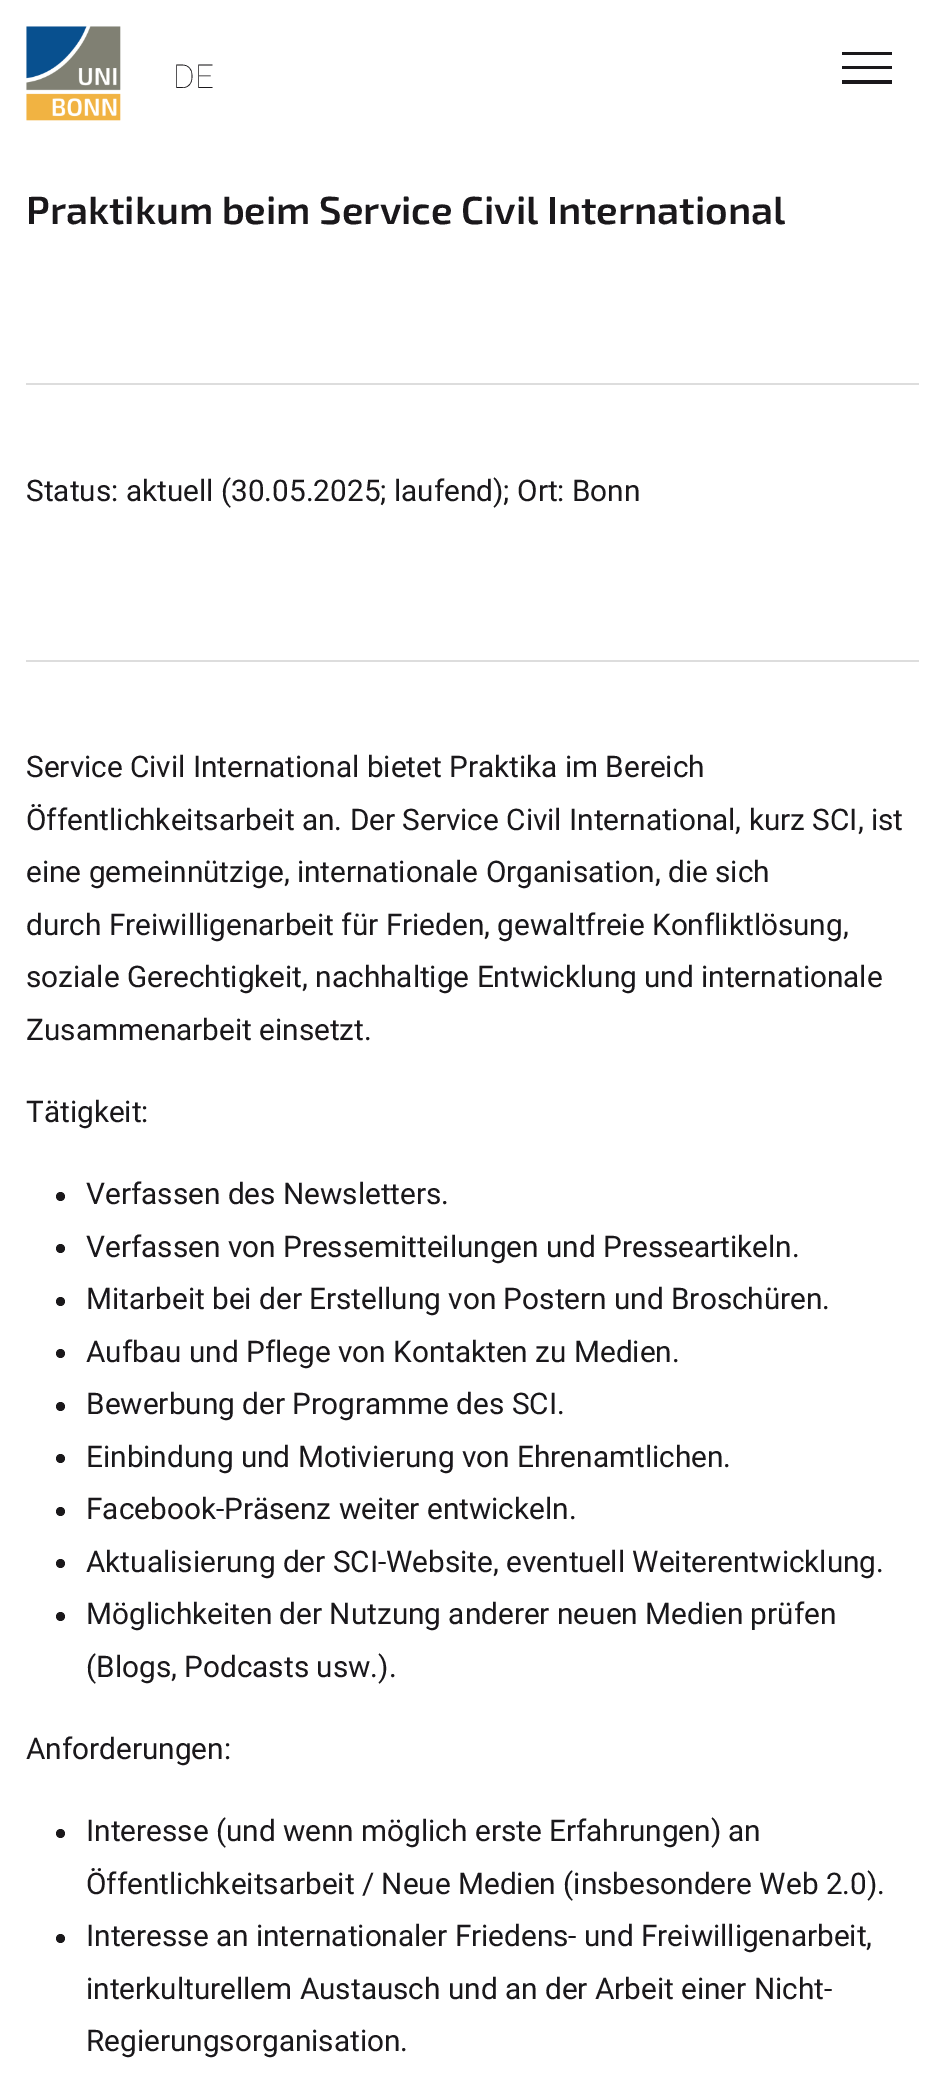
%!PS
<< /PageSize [945 2082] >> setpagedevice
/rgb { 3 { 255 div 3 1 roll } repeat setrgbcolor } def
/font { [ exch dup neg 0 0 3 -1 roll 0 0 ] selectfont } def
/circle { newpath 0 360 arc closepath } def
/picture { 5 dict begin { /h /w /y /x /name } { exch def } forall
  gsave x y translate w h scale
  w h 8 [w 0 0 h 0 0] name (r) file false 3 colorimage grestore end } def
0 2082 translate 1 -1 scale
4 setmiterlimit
255 255 255 rgb
0 0 945 2082 rectfill
(img/1.rgb) 26 26 95 95 picture
26 24 27 rgb
842 84 moveto 892 84 lineto 892 80 lineto 842 80 lineto closepath 842 69 moveto 892 69 lineto 892 66 lineto 842 66 lineto closepath 842 52 moveto 842 55 lineto 892 55 lineto 892 52 lineto closepath fill
221 221 221 rgb
26 383 893 2 rectfill
26 660 893 2 rectfill
26 24 27 rgb
60.5 1196.5 4.5 circle fill
60.5 1248.5 4.5 circle fill
60.5 1301.5 4.5 circle fill
60.5 1353.5 4.5 circle fill
60.5 1406.5 4.5 circle fill
60.5 1458.5 4.5 circle fill
60.5 1511.5 4.5 circle fill
60.5 1563.5 4.5 circle fill
60.5 1616.5 4.5 circle fill
60.5 1833.5 4.5 circle fill
60.5 1938.5 4.5 circle fill
/Roboto-Thin 33 font
173 88 moveto (DE) show
/Exo2-SemiBold 39.1 font
26 224 moveto (Praktikum beim Service Civil International) show
/Roboto-Regular 29.75 font
[
  [(Status: aktuell \(30.05.2025; laufend\); Ort: Bonn) 26 501]
  [(Service Civil International bietet Praktika im Bereich) 26 777]
  [(Öffentlichkeitsarbeit an. Der Service Civil International, kurz SCI, ist) 26 830]
  [(eine gemeinnützige, internationale Organisation, die sich) 26 882]
  [(durch Freiwilligenarbeit für Frieden, gewaltfreie Konfliktlösung,) 26 935]
  [(soziale Gerechtigkeit, nachhaltige Entwicklung und internationale) 26 987]
  [(Zusammenarbeit einsetzt.) 26 1040]
  [(Tätigkeit:) 26 1122]
  [(Verfassen des Newsletters.) 86 1204]
  [(Verfassen von Pressemitteilungen und Presseartikeln.) 86 1257]
  [(Mitarbeit bei der Erstellung von Postern und Broschüren.) 86 1309]
  [(Aufbau und Pflege von Kontakten zu Medien.) 86 1362]
  [(Bewerbung der Programme des SCI.) 86 1414]
  [(Einbindung und Motivierung von Ehrenamtlichen.) 86 1467]
  [(Facebook-Präsenz weiter entwickeln.) 86 1519]
  [(Aktualisierung der SCI-Website, eventuell Weiterentwicklung.) 86 1572]
  [(Möglichkeiten der Nutzung anderer neuen Medien prüfen) 86 1624]
  [(\(Blogs, Podcasts usw.\).) 86 1677]
  [(Anforderungen:) 26 1759]
  [(Interesse \(und wenn möglich erste Erfahrungen\) an) 86 1841]
  [(Öffentlichkeitsarbeit / Neue Medien \(insbesondere Web 2.0\).) 86 1894]
  [(Interesse an internationaler Friedens- und Freiwilligenarbeit,) 86 1946]
  [(interkulturellem Austausch und an der Arbeit einer Nicht-) 86 1999]
  [(Regierungsorganisation.) 86 2051]
] { aload pop moveto show } forall
showpage
